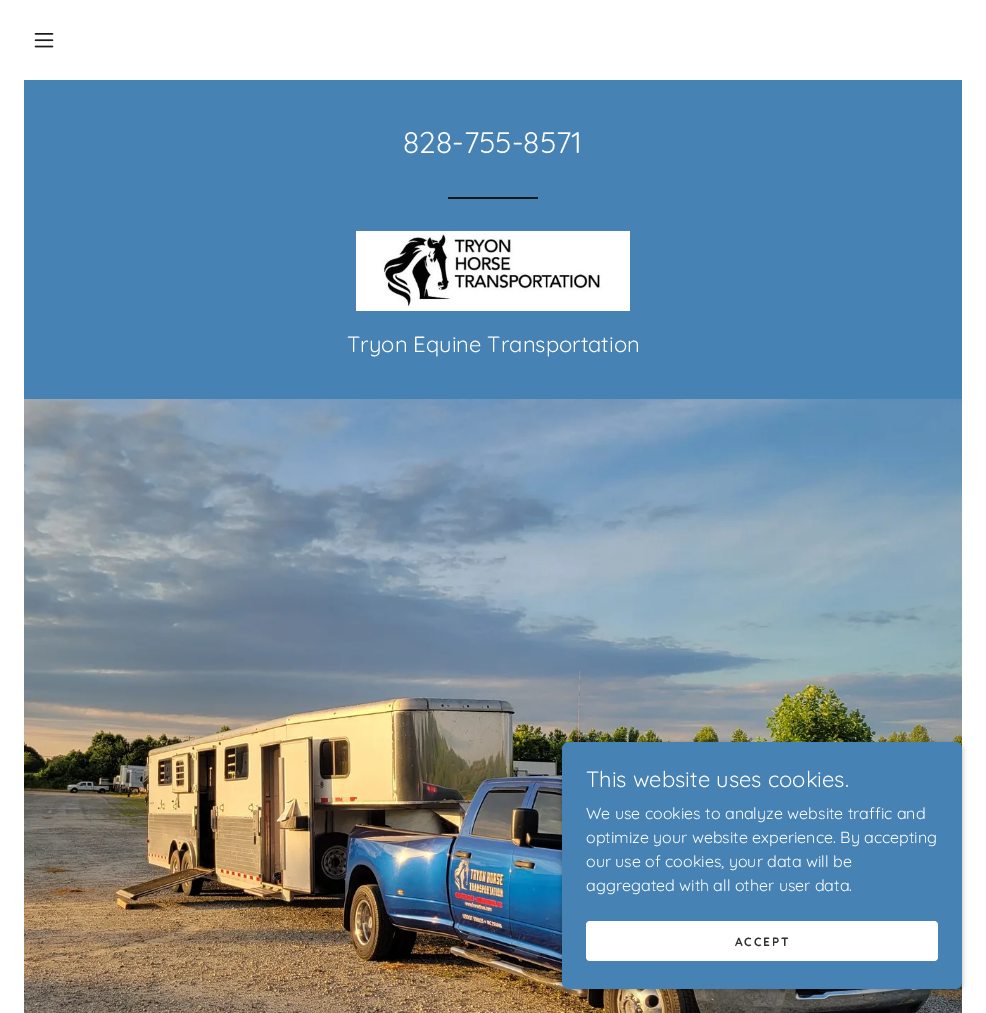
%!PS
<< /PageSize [986 1013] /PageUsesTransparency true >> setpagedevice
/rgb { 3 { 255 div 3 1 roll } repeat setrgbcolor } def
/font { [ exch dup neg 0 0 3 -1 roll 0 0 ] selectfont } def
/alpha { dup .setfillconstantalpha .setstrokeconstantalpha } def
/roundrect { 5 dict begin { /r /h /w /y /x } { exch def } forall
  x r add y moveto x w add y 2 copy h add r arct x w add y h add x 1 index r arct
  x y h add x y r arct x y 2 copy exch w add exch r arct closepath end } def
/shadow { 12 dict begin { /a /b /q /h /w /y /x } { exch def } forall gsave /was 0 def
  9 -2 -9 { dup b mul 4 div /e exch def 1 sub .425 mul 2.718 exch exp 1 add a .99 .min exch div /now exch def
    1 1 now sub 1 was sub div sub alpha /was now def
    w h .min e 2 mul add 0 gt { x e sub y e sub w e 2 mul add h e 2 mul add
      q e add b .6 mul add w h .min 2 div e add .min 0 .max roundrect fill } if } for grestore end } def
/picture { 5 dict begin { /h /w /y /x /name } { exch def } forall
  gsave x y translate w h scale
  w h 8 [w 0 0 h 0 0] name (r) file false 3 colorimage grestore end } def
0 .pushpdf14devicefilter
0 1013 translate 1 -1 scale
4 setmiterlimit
255 255 255 rgb
0 0 986 1013 rectfill
(img/1.rgb) 34 33 20 15 picture
70 130 180 rgb
24 80 938 319 rectfill
22 22 22 rgb
448 197 90 2 rectfill
(img/2.rgb) 356 231 274 80 picture
(img/3.rgb) 24 399 938 614 picture
0 0 0 rgb
562 744 400 247 7 3 0.3 shadow
70 130 180 rgb
562 742 400 247 7 roundrect fill
255 255 255 rgb
586 921 352 40 4 roundrect fill
/Quicksand-Regular 30 font
403 153 moveto (828-755-8571) show
/Quicksand-Regular 22 font
347 352 moveto (Tryon Equine Transportation) show
586 787 moveto (This website uses cookies.) show
/Quicksand-Regular 16 font
[
  [(We use cookies to analyze website traffic and) 586 819]
  [(optimize your website experience. By accepting) 586 843]
  [(our use of cookies, your data will be) 586 867]
  [(aggregated with all other user data.) 586 891]
] { aload pop moveto show } forall
/Quicksand-Bold 12 font
48 48 48 rgb
735 946 moveto 1.75 0 (ACCEPT) ashow
.poppdf14devicefilter showpage
